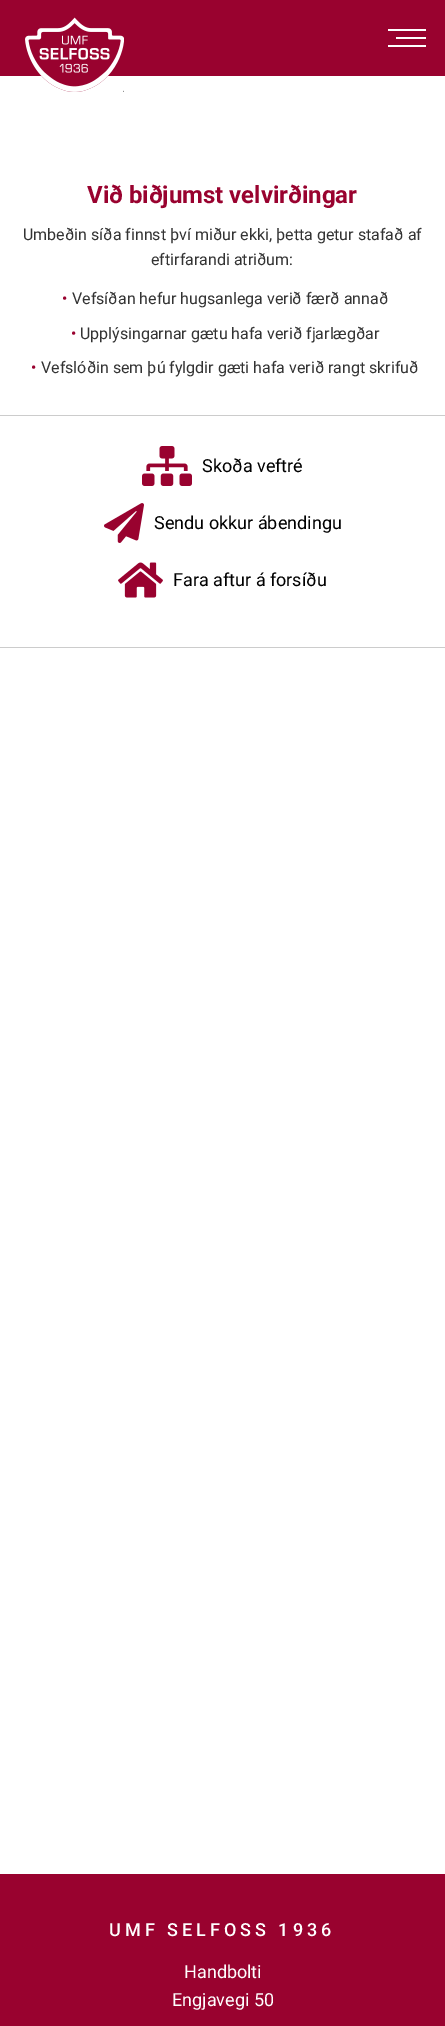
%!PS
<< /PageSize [445 2026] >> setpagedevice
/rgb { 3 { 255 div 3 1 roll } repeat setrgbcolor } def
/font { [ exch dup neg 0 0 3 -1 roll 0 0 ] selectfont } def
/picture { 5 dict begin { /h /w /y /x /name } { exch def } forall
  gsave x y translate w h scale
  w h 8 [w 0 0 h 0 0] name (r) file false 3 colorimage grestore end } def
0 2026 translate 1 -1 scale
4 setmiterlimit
255 255 255 rgb
0 0 445 2026 rectfill
153 2 47 rgb
0 0 445 76 rectfill
(img/1.rgb) 25 17 99 75 picture
[
  [388 29 38 2 255 255 255]
  [396 37 30 2 255 255 255]
  [388 45 38 2 255 255 255]
  [0 415 445 1 204 204 204]
  [0 647 445 1 204 204 204]
] { aload pop rgb rectfill } forall
(img/2.rgb) 142 446 50 40 picture
(img/3.rgb) 104 503 40 40 picture
(img/4.rgb) 118 562 45 36 picture
153 2 47 rgb
0 1874 445 152 rectfill
/Roboto-Bold 24 font
87 203 moveto (Við biðjumst velvirðingar) show
/Roboto-Regular 16 font
51 51 51 rgb
23 240 moveto (Umbeðin síða finnst því miður ekki, þetta getur stafað af) show
151 265 moveto (eftirfarandi atriðum:) show
153 2 47 rgb
62 304 moveto (•) show
51 51 51 rgb
72 304 moveto (Vefsíðan hefur hugsanlega verið færð annað) show
153 2 47 rgb
71 339 moveto (•) show
51 51 51 rgb
80 339 moveto (Upplýsingarnar gætu hafa verið fjarlægðar) show
153 2 47 rgb
31 373 moveto (•) show
51 51 51 rgb
41 373 moveto (Vefslóðin sem þú fylgdir gæti hafa verið rangt skrifuð) show
/Roboto-Regular 18 font
0 0 0 rgb
[
  [(Skoða veftré) 202 472]
  [(Sendu okkur ábendingu) 154 529]
  [(Fara aftur á forsíðu) 173 586]
] { aload pop moveto show } forall
/Roboto-Medium 18 font
255 255 255 rgb
109 1936 moveto 4 0 (UMF SELFOSS 1936) ashow
/Roboto-Regular 18 font
184 1978 moveto (Handbolti) show
172 2006 moveto (Engjavegi 50) show
showpage
